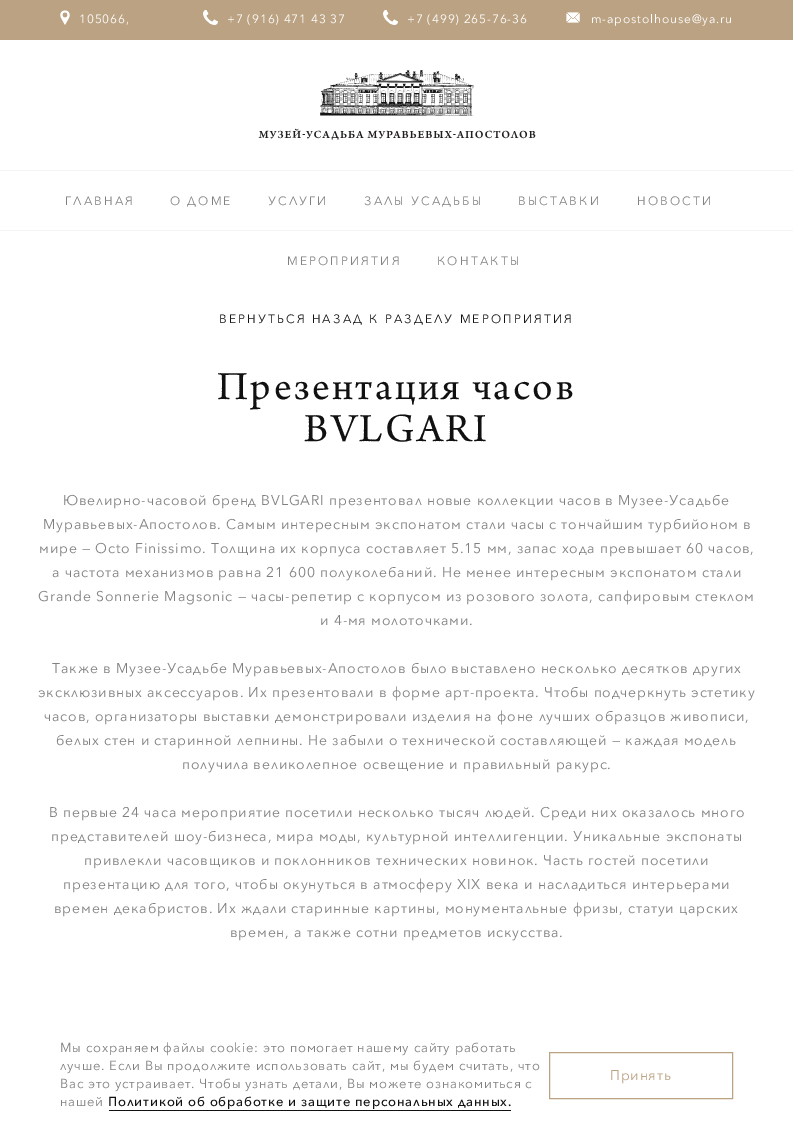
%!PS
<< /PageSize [793 1131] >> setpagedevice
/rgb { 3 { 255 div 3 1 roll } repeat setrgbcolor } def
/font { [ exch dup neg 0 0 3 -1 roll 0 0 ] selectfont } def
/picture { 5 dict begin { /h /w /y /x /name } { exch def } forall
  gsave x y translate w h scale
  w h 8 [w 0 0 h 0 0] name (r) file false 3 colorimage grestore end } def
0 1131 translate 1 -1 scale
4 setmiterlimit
255 255 255 rgb
0 0 793 1131 rectfill
186 162 130 rgb
0 0 793 40 rectfill
(img/1.rgb) 60 10 10 15 picture
(img/2.rgb) 203 10 15 15 picture
(img/2.rgb) 383 10 15 15 picture
(img/3.rgb) 566 12 14 11 picture
244 244 244 rgb
0 170 793 1 rectfill
(img/4.rgb) 258 70 278 70 picture
0 230 793 1 rectfill
17 17 17 rgb
109 1110 402 1 rectfill
186 162 130 rgb
549.5 1052.5 183 46 rectstroke
/AvenirNext-Regular 12 font
255 255 255 rgb
79 23 moveto 0.85 0 (105066,) ashow
227 23 moveto 0.85 0 (+7 \(916\) 471 43 37) ashow
407 23 moveto 0.85 0 (+7 \(499\) 265-76-36) ashow
591 23 moveto 0.85 0 (m-apostolhouse@ya.ru) ashow
128 128 128 rgb
65 205 moveto 2.15 0 (ГЛАВНАЯ) ashow
170 205 moveto 2.15 0 (О ДОМЕ) ashow
268 205 moveto 2.15 0 (УСЛУГИ) ashow
364 205 moveto 2.15 0 (ЗАЛЫ УСАДЬБЫ) ashow
518 205 moveto 2.15 0 (ВЫСТАВКИ) ashow
637 205 moveto 2.15 0 (НОВОСТИ) ashow
287 265 moveto 2.15 0 (МЕРОПРИЯТИЯ) ashow
437 265 moveto 2.15 0 (КОНТАКТЫ) ashow
17 17 17 rgb
219 323 moveto 2.15 0 (ВЕРНУТЬСЯ НАЗАД К РАЗДЕЛУ МЕРОПРИЯТИЯ) ashow
/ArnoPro-Regular 42 font
217 399 moveto 2.5 0 (Презентация часов) ashow
304 441 moveto 2.5 0 (BVLGARI) ashow
/AvenirNext-Regular 14 font
128 128 128 rgb
63 505 moveto 0.85 0 (Ювелирно-часовой бренд BVLGARI презентовал новые коллекции часов в Музее-Усадьбе) ashow
43 529 moveto 0.85 0 (Муравьевых-Апостолов. Самым интересным экспонатом стали часы с тончайшим турбийоном в) ashow
39 553 moveto 0.85 0 (мире — Octo Finissimo. Толщина их корпуса составляет 5.15 мм, запас хода превышает 60 часов,) ashow
52 577 moveto 0.85 0 (а частота механизмов равна 21 600 полуколебаний. Не менее интересным экспонатом стали) ashow
38 601 moveto 0.85 0 (Grande Sonnerie Magsonic — часы-репетир с корпусом из розового золота, сапфировым стеклом) ashow
320 625 moveto 0.85 0 (и 4-мя молоточками.) ashow
52 673 moveto 0.85 0 (Также в Музее-Усадьбе Муравьевых-Апостолов было выставлено несколько десятков других) ashow
38 697 moveto 0.85 0 (эксклюзивных аксессуаров. Их презентовали в форме арт-проекта. Чтобы подчеркнуть эстетику) ashow
44 721 moveto 0.85 0 (часов, организаторы выставки демонстрировали изделия на фоне лучших образцов живописи,) ashow
56 745 moveto 0.85 0 (белых стен и старинной лепнины. Не забыли о технической составляющей — каждая модель) ashow
182 769 moveto 0.85 0 (получила великолепное освещение и правильный ракурс.) ashow
49 817 moveto 0.85 0 (В первые 24 часа мероприятие посетили несколько тысяч людей. Среди них оказалось много) ashow
51 841 moveto 0.85 0 (представителей шоу-бизнеса, мира моды, культурной интеллигенции. Уникальные экспонаты) ashow
84 865 moveto 0.85 0 (привлекли часовщиков и поклонников технических новинок. Часть гостей посетили) ashow
63 889 moveto 0.85 0 (презентацию для того, чтобы окунуться в атмосферу XIX века и насладиться интерьерами) ashow
54 913 moveto 0.85 0 (времен декабристов. Их ждали старинные картины, монументальные фризы, статуи царских) ashow
230 937 moveto 0.85 0 (времен, а также сотни предметов искусства.) ashow
/AvenirNext-Regular 13 font
60 1052 moveto 0.78 0 (Мы cохраняем файлы cookie: это помогает нашему сайту работать) ashow
60 1070 moveto 0.78 0 (лучше. Если Вы продолжите использовать сайт, мы будем считать, что) ashow
60 1088 moveto 0.78 0 (Вас это устраивает. Чтобы узнать детали, Вы можете ознакомиться с) ashow
60 1106 moveto 0.78 0 (нашей) ashow
/AvenirNext-Medium 13 font
17 17 17 rgb
108 1106 moveto 0.78 0 (Политикой об обработке и защите персональных данных.) ashow
/AvenirNext-Regular 14 font
186 162 130 rgb
610 1080 moveto 0.85 0 (Принять) ashow
showpage
